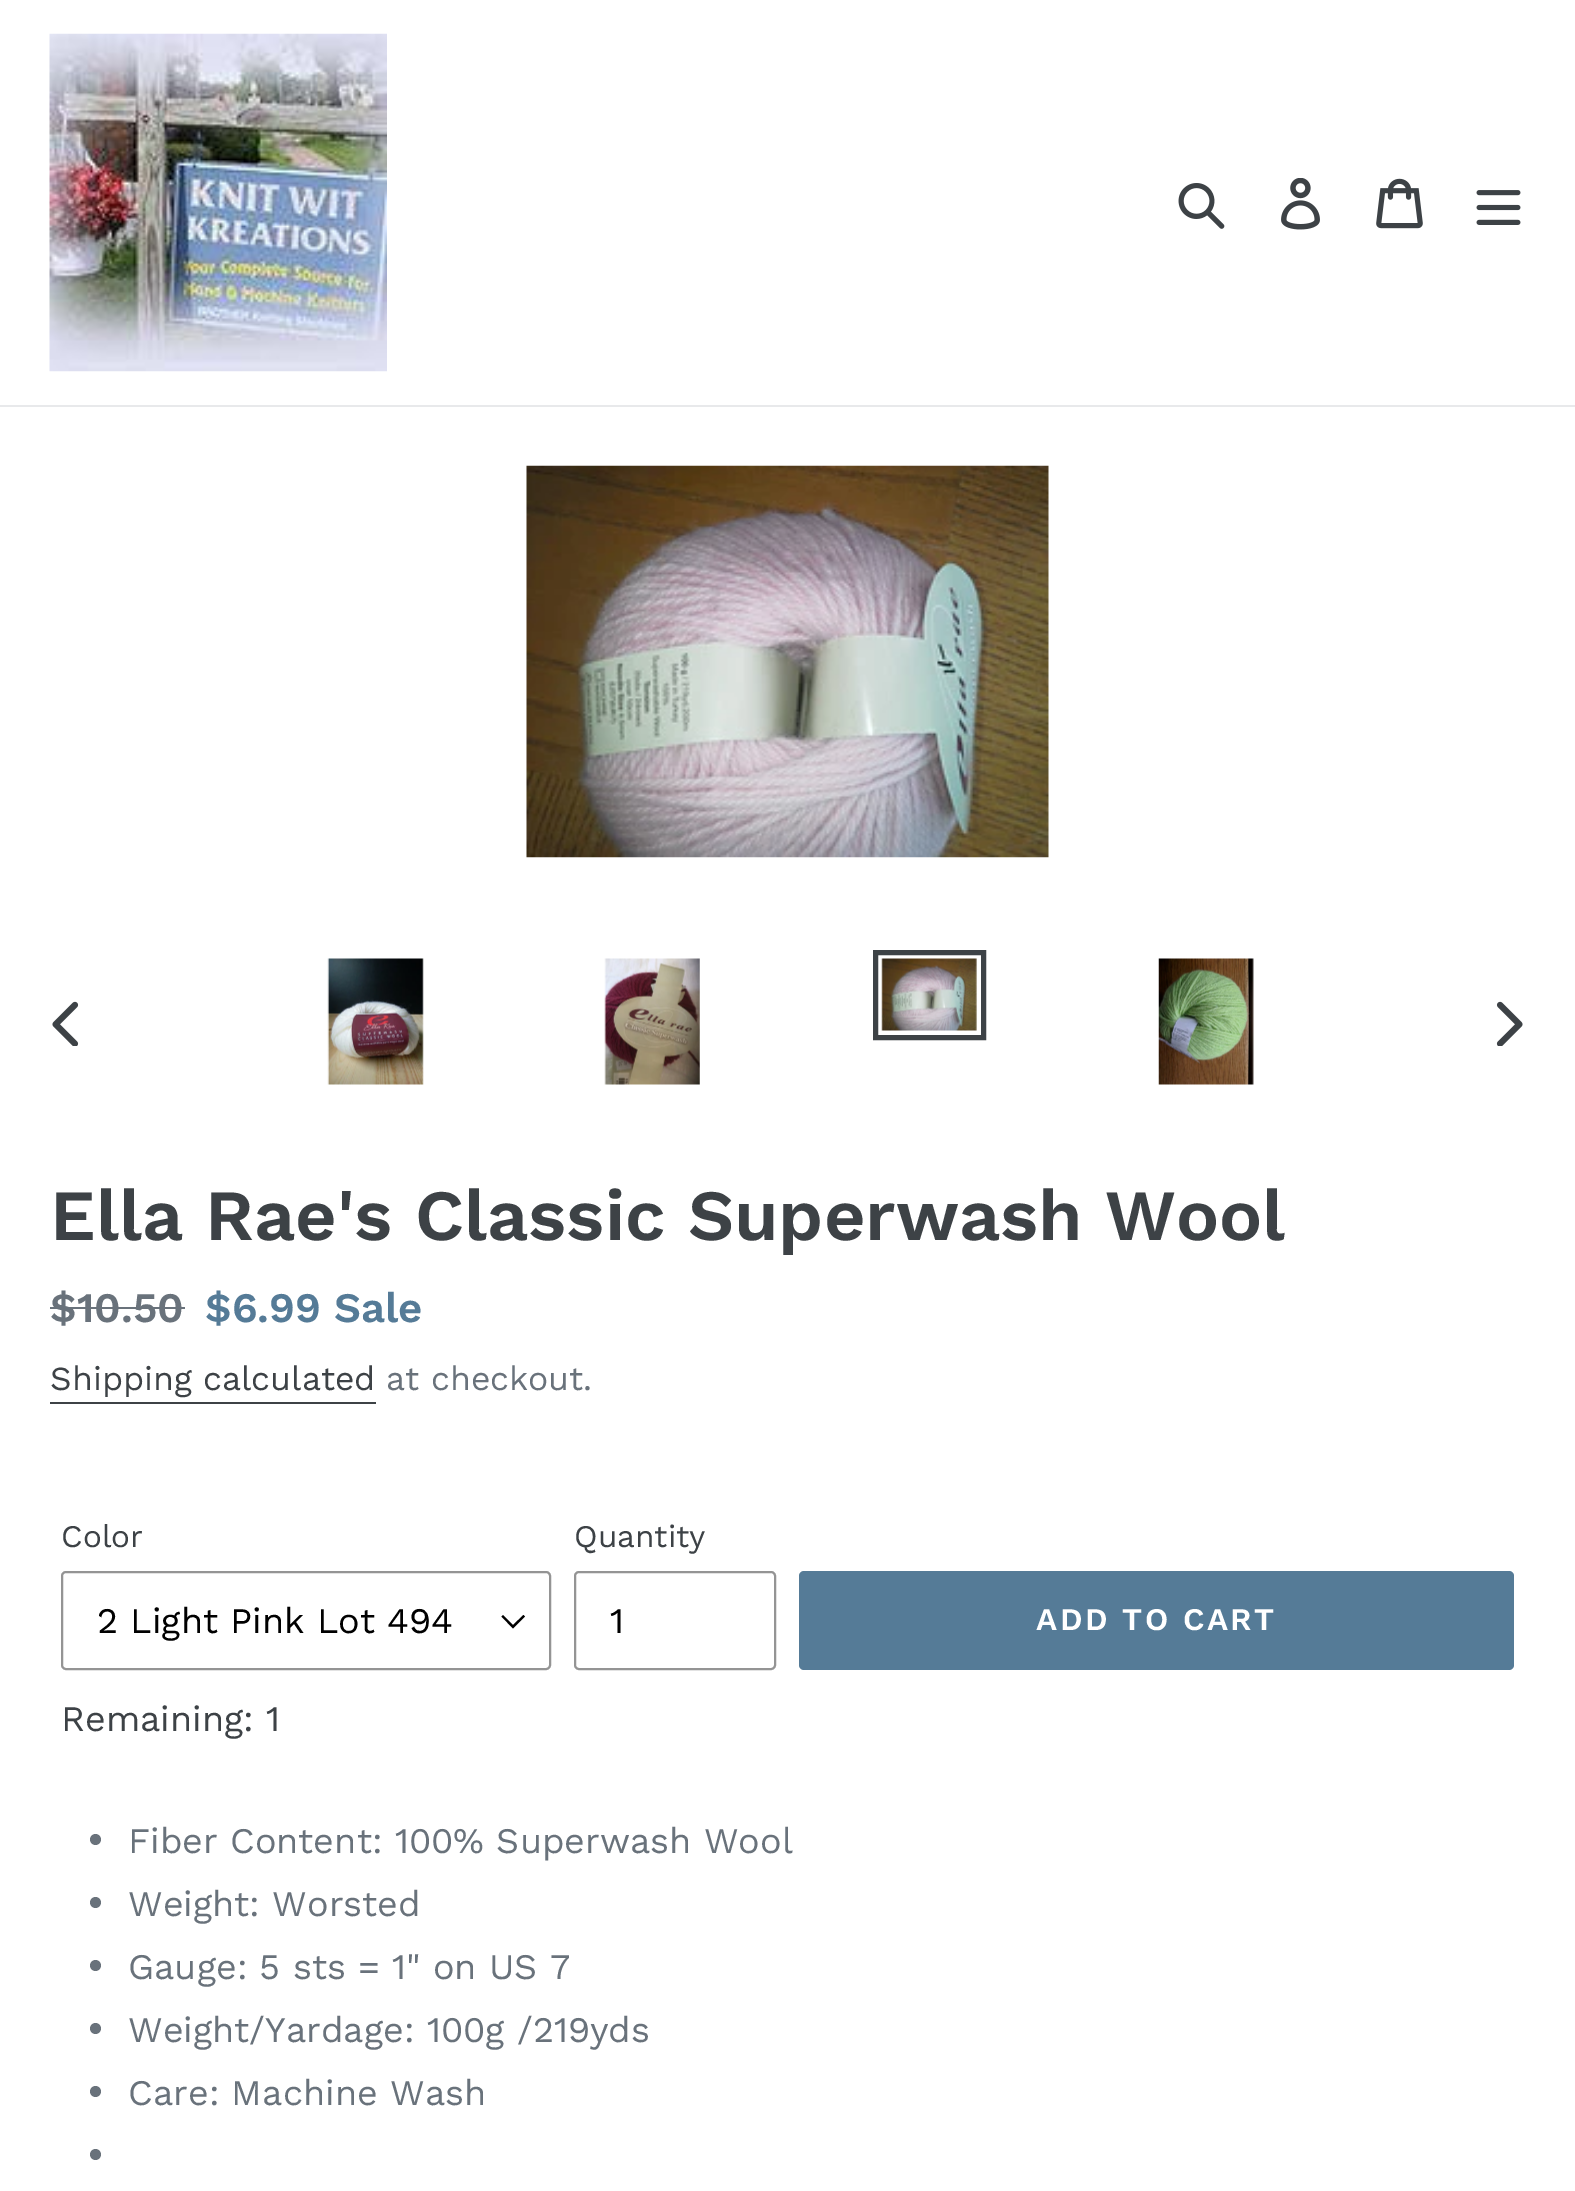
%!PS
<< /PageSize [1575 2191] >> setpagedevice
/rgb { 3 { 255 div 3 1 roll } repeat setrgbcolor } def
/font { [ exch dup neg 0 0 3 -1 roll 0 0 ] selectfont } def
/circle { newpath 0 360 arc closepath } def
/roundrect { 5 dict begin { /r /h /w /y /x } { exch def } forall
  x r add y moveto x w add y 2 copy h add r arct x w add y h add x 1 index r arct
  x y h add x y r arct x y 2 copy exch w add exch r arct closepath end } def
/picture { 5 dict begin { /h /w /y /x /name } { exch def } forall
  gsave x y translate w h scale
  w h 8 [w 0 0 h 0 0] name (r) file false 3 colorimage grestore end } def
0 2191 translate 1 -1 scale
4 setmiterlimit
255 255 255 rgb
0 0 1575 2191 rectfill
232 233 235 rgb
0 405 1575 2 rectfill
(img/1.rgb) 49 33 338 339 picture
(img/2.rgb) 1178 183 47 46 picture
(img/3.rgb) 1281 178 39 52 picture
(img/4.rgb) 1376 178 47 51 picture
(img/5.rgb) 1476 190 45 35 picture
(img/6.rgb) 526 465 523 393 picture
(img/7.rgb) 52 1001 27 45 picture
(img/8.rgb) 327 958 97 127 picture
(img/9.rgb) 604 958 96 127 picture
61 66 70 rgb
5 setlinewidth
875.5 952.5 108 85 rectstroke
(img/10.rgb) 881 958 96 73 picture
(img/11.rgb) 1158 958 96 127 picture
(img/12.rgb) 1496 1001 27 45 picture
105 114 123 rgb
50 1307 135 2 rectfill
61 66 70 rgb
50 1402 326 2 rectfill
0 0 0 rgb
513 1628.5 moveto 501.5 1616.5 lineto 503 1615 lineto 513 1625 lineto 523.5 1615 lineto 525 1616.5 lineto closepath fill
148 148 148 rgb
2 setlinewidth
62 1572 488 97 4 roundrect stroke
575 1572 200 97 4 roundrect stroke
85 123 151 rgb
799 1571 715 99 5 roundrect fill
105 114 123 rgb
95.5 1839.5 5.5 circle fill
95.5 1902.5 5.5 circle fill
95.5 1965.5 5.5 circle fill
95.5 2028.5 5.5 circle fill
95.5 2091.5 5.5 circle fill
95.5 2154.5 5.5 circle fill
/WorkSans-SemiBold 72 font
61 66 70 rgb
50 1240 moveto (Ella Rae's Classic Superwash Wool) show
/WorkSans-SemiBold 42 font
105 114 123 rgb
50 1322 moveto ($10.50) show
85 123 151 rgb
205 1322 moveto ($6.99 Sale) show
/WorkSans-Regular 33.75 font
61 66 70 rgb
50 1390 moveto (Shipping calculated) show
105 114 123 rgb
386 1390 moveto (at checkout.) show
/WorkSans-Regular 31.5 font
61 66 70 rgb
61 1547 moveto (Color) show
/WorkSans-Regular 36 font
0 0 0 rgb
97 1633 moveto (2 Light Pink Lot 494) show
/WorkSans-Regular 31.5 font
61 66 70 rgb
574 1547 moveto (Quantity) show
/WorkSans-Regular 36 font
0 0 0 rgb
610 1633 moveto (1) show
/WorkSans-SemiBold 31.5 font
255 255 255 rgb
1036 1630 moveto 2.5 0 (ADD TO CART) ashow
/WorkSans-Regular 36 font
61 66 70 rgb
61 1731 moveto (Remaining: 1) show
105 114 123 rgb
[
  [(Fiber Content: 100% Superwash Wool) 128 1853]
  [(Weight: Worsted) 128 1916]
  [(Gauge: 5 sts = 1" on US 7) 128 1979]
  [(Weight/Yardage: 100g /219yds) 128 2042]
  [(Care: Machine Wash) 128 2105]
] { aload pop moveto show } forall
showpage
